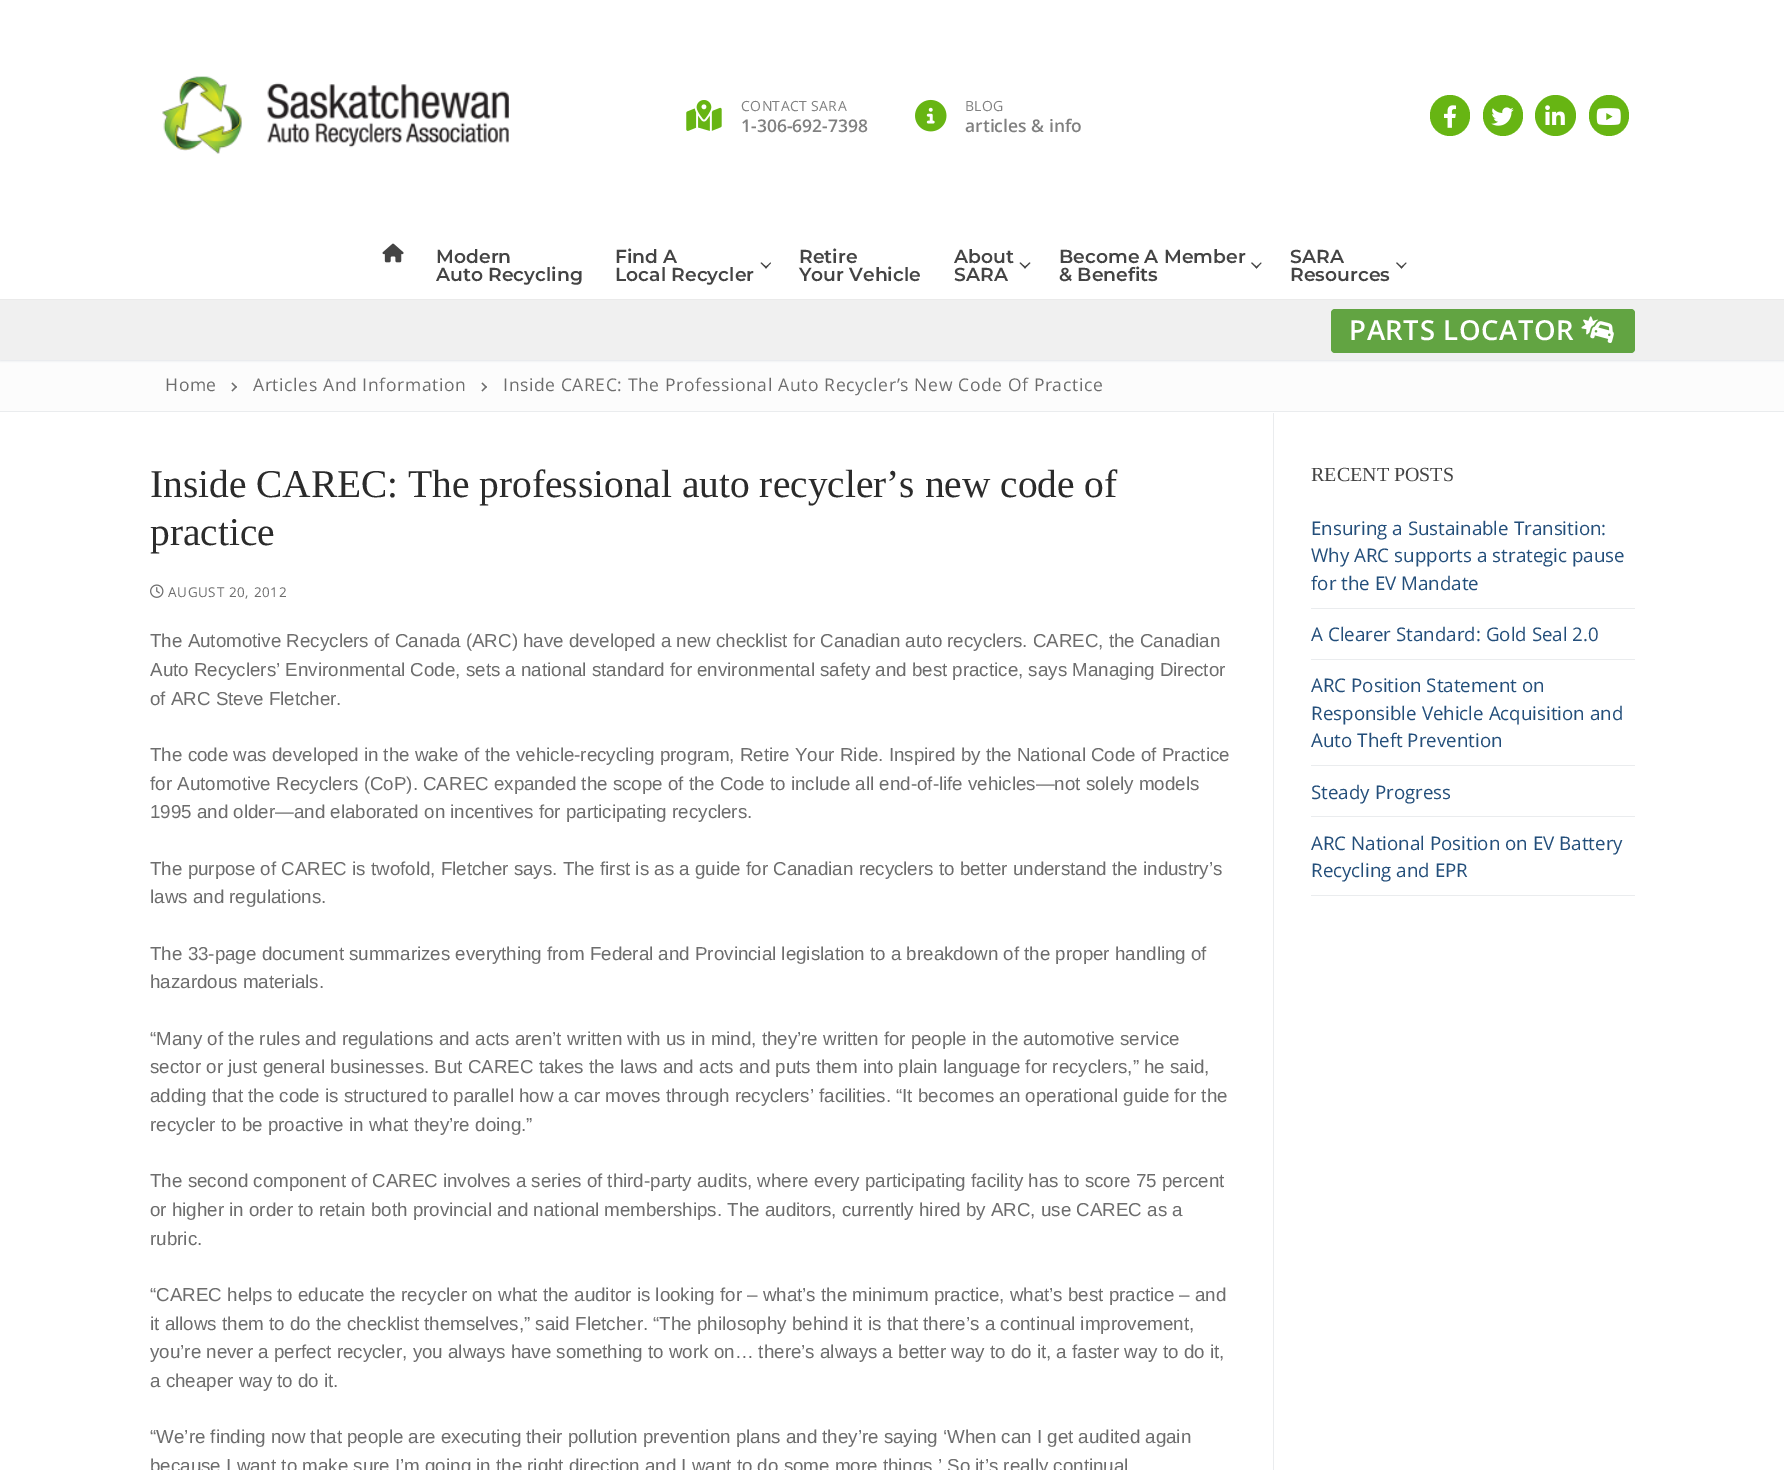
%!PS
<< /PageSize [1784 1470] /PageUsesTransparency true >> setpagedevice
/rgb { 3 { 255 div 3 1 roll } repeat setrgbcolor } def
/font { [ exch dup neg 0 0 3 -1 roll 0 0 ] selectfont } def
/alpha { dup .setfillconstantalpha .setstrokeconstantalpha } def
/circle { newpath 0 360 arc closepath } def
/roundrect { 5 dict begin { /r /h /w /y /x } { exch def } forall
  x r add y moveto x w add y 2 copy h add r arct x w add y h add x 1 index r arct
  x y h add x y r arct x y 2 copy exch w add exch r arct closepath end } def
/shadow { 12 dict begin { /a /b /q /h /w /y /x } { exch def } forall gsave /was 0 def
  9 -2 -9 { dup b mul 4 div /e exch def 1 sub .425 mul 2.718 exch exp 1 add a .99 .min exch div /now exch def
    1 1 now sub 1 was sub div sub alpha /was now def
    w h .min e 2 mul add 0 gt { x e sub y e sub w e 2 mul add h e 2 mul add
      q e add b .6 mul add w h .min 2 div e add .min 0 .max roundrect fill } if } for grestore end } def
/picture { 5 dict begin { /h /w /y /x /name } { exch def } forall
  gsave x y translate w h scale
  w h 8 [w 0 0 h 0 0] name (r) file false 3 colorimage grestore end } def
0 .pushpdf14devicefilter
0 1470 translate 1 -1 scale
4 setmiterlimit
255 255 255 rgb
0 0 1784 1470 rectfill
(img/1.rgb) 162 76 347 78 picture
(img/2.rgb) 686 100 36 31 picture
(img/3.rgb) 915 99 32 33 picture
103 181 19 rgb
1430 95 40 41 20 roundrect fill
(img/4.rgb) 1444 105 12 23 picture
1483 95 40 41 20 roundrect fill
(img/5.rgb) 1491 107 23 19 picture
1555.5 115.5 20.5 circle fill
(img/6.rgb) 1545 105 20 20 picture
1589 95 40 41 20 roundrect fill
(img/7.rgb) 1596 108 25 17 picture
234 234 234 rgb
0 299 1784 1 rectfill
(img/8.rgb) 382 243 22 20 picture
68 68 68 rgb
766 268.5 moveto 760.5 263 lineto 761.5 262.5 lineto 767 267.5 lineto closepath fill
766 268.5 moveto 765 267.5 lineto 770.5 262.5 lineto 771 263 lineto closepath fill
1025 268.5 moveto 1019.5 263 lineto 1020.5 262.5 lineto 1026 267.5 lineto closepath fill
1025 268.5 moveto 1024 267.5 lineto 1029.5 262.5 lineto 1030.5 263 lineto closepath fill
1256.5 268.5 moveto 1251 263 lineto 1252 262.5 lineto 1257.5 267.5 lineto closepath fill
1256.5 268.5 moveto 1255.5 267.5 lineto 1261 262.5 lineto 1261.5 263 lineto closepath fill
1401.5 268.5 moveto 1396 263 lineto 1397 262.5 lineto 1402.5 267.5 lineto closepath fill
1401.5 268.5 moveto 1400.5 267.5 lineto 1406 262.5 lineto 1406.5 263 lineto closepath fill
252 252 252 rgb
0 360 1784 51 rectfill
225 229 234 rgb
0 301 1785 60 0 1 1 shadow
240 240 240 rgb
0 300 1784 60 rectfill
98 164 66 rgb
1331 309 304 44 4 roundrect fill
(img/9.rgb) 1581 316 33 27 picture
234 236 238 rgb
0 411 1784 1 rectfill
109 109 109 rgb
237 387 moveto 232.5 391.5 lineto 231.5 390.5 lineto 236 386 lineto closepath fill
237 387 moveto 236 388 lineto 231.5 383.5 lineto 232.5 382.5 lineto closepath fill
487 387 moveto 482.5 391.5 lineto 481.5 390.5 lineto 486 386 lineto closepath fill
487 387 moveto 486 388 lineto 481.5 383.5 lineto 482.5 382.5 lineto closepath fill
234 236 238 rgb
1273 413 1 1057 rectfill
(img/10.rgb) 150 584 14 14 picture
[
  [1311 608 324 1 234 236 238]
  [1311 659 324 1 234 236 238]
  [1311 765 324 1 234 236 238]
  [1311 816 324 1 234 236 238]
  [1311 895 324 1 234 236 238]
] { aload pop rgb rectfill } forall
/OpenSans-Regular 14 font
128 128 128 rgb
741 111 moveto 0.4 0 (CONTACT SARA) ashow
/OpenSans-SemiBold 17.5 font
741 132 moveto (1-306-692-7398) show
/OpenSans-Regular 14 font
965 111 moveto 0.4 0 (BLOG) ashow
/OpenSans-SemiBold 17.5 font
965 132 moveto (articles & info) show
/Montserrat-SemiBold 18.75 font
68 68 68 rgb
[
  [(Modern) 436 263]
  [(Auto Recycling) 436 281]
  [(Find A) 615 263]
  [(Local Recycler) 615 281]
  [(Retire) 799 263]
  [(Your Vehicle) 799 281]
  [(About) 954 263]
  [(SARA) 954 281]
  [(Become A Member) 1059 263]
  [(& Benefits) 1059 281]
  [(SARA) 1290 263]
  [(Resources) 1290 281]
] { aload pop moveto show } forall
/OpenSans-SemiBold 27.5 font
255 255 255 rgb
1349 340 moveto 0.62 0 (PARTS LOCATOR) ashow
/OpenSans-Regular 17.5 font
109 109 109 rgb
165 391 moveto 0.62 0 (Home) ashow
253 391 moveto 0.62 0 (Articles And Information) ashow
503 391 moveto 0.62 0 (Inside CAREC: The Professional Auto Recycler’s New Code Of Practice) ashow
/LiberationSerif-Regular 39.4 font
43 43 43 rgb
150 497 moveto (Inside CAREC: The professional auto recycler’s new code of) show
150 545 moveto (practice) show
/OpenSans-Regular 13.5 font
109 109 109 rgb
168 597 moveto 0.62 0 (AUGUST 20, 2012) ashow
/LiberationSans-Regular 18.75 font
[
  [(The Automotive Recyclers of Canada \(ARC\) have developed a new checklist for Canadian auto recyclers. CAREC, the Canadian) 150 647]
  [(Auto Recyclers’ Environmental Code, sets a national standard for environmental safety and best practice, says Managing Director) 150 676]
  [(of ARC Steve Fletcher.) 150 705]
  [(The code was developed in the wake of the vehicle-recycling program, Retire Your Ride. Inspired by the National Code of Practice) 150 761]
  [(for Automotive Recyclers \(CoP\). CAREC expanded the scope of the Code to include all end-of-life vehicles—not solely models) 150 790]
  [(1995 and older—and elaborated on incentives for participating recyclers.) 150 818]
  [(The purpose of CAREC is twofold, Fletcher says. The first is as a guide for Canadian recyclers to better understand the industry’s) 150 875]
  [(laws and regulations.) 150 903]
  [(The 33-page document summarizes everything from Federal and Provincial legislation to a breakdown of the proper handling of) 150 960]
  [(hazardous materials.) 150 988]
  [(“Many of the rules and regulations and acts aren’t written with us in mind, they’re written for people in the automotive service) 150 1045]
  [(sector or just general businesses. But CAREC takes the laws and acts and puts them into plain language for recyclers,” he said,) 150 1073]
  [(adding that the code is structured to parallel how a car moves through recyclers’ facilities. “It becomes an operational guide for the) 150 1102]
  [(recycler to be proactive in what they’re doing.”) 150 1131]
  [(The second component of CAREC involves a series of third-party audits, where every participating facility has to score 75 percent) 150 1187]
  [(or higher in order to retain both provincial and national memberships. The auditors, currently hired by ARC, use CAREC as a) 150 1216]
  [(rubric.) 150 1245]
  [(“CAREC helps to educate the recycler on what the auditor is looking for – what’s the minimum practice, what’s best practice – and) 150 1301]
  [(it allows them to do the checklist themselves,” said Fletcher. “The philosophy behind it is that there’s a continual improvement,) 150 1330]
  [(you’re never a perfect recycler, you always have something to work on… there’s always a better way to do it, a faster way to do it,) 150 1358]
  [(a cheaper way to do it.) 150 1387]
  [(“We’re finding now that people are executing their pollution prevention plans and they’re saying ‘When can I get audited again) 150 1443]
  [(because I want to make sure I’m going in the right direction and I want to do some more things.’ So it’s really continual) 150 1472]
] { aload pop moveto show } forall
/LiberationSerif-Regular 20 font
68 68 68 rgb
1311 481 moveto (RECENT POSTS) show
/OpenSans-Regular 18.75 font
35 78 122 rgb
[
  [(Ensuring a Sustainable Transition:) 1311 535]
  [(Why ARC supports a strategic pause) 1311 562]
  [(for the EV Mandate) 1311 590]
  [(A Clearer Standard: Gold Seal 2.0) 1311 641]
  [(ARC Position Statement on) 1311 692]
  [(Responsible Vehicle Acquisition and) 1311 720]
  [(Auto Theft Prevention) 1311 747]
  [(Steady Progress) 1311 799]
  [(ARC National Position on EV Battery) 1311 850]
  [(Recycling and EPR) 1311 877]
] { aload pop moveto show } forall
.poppdf14devicefilter showpage
